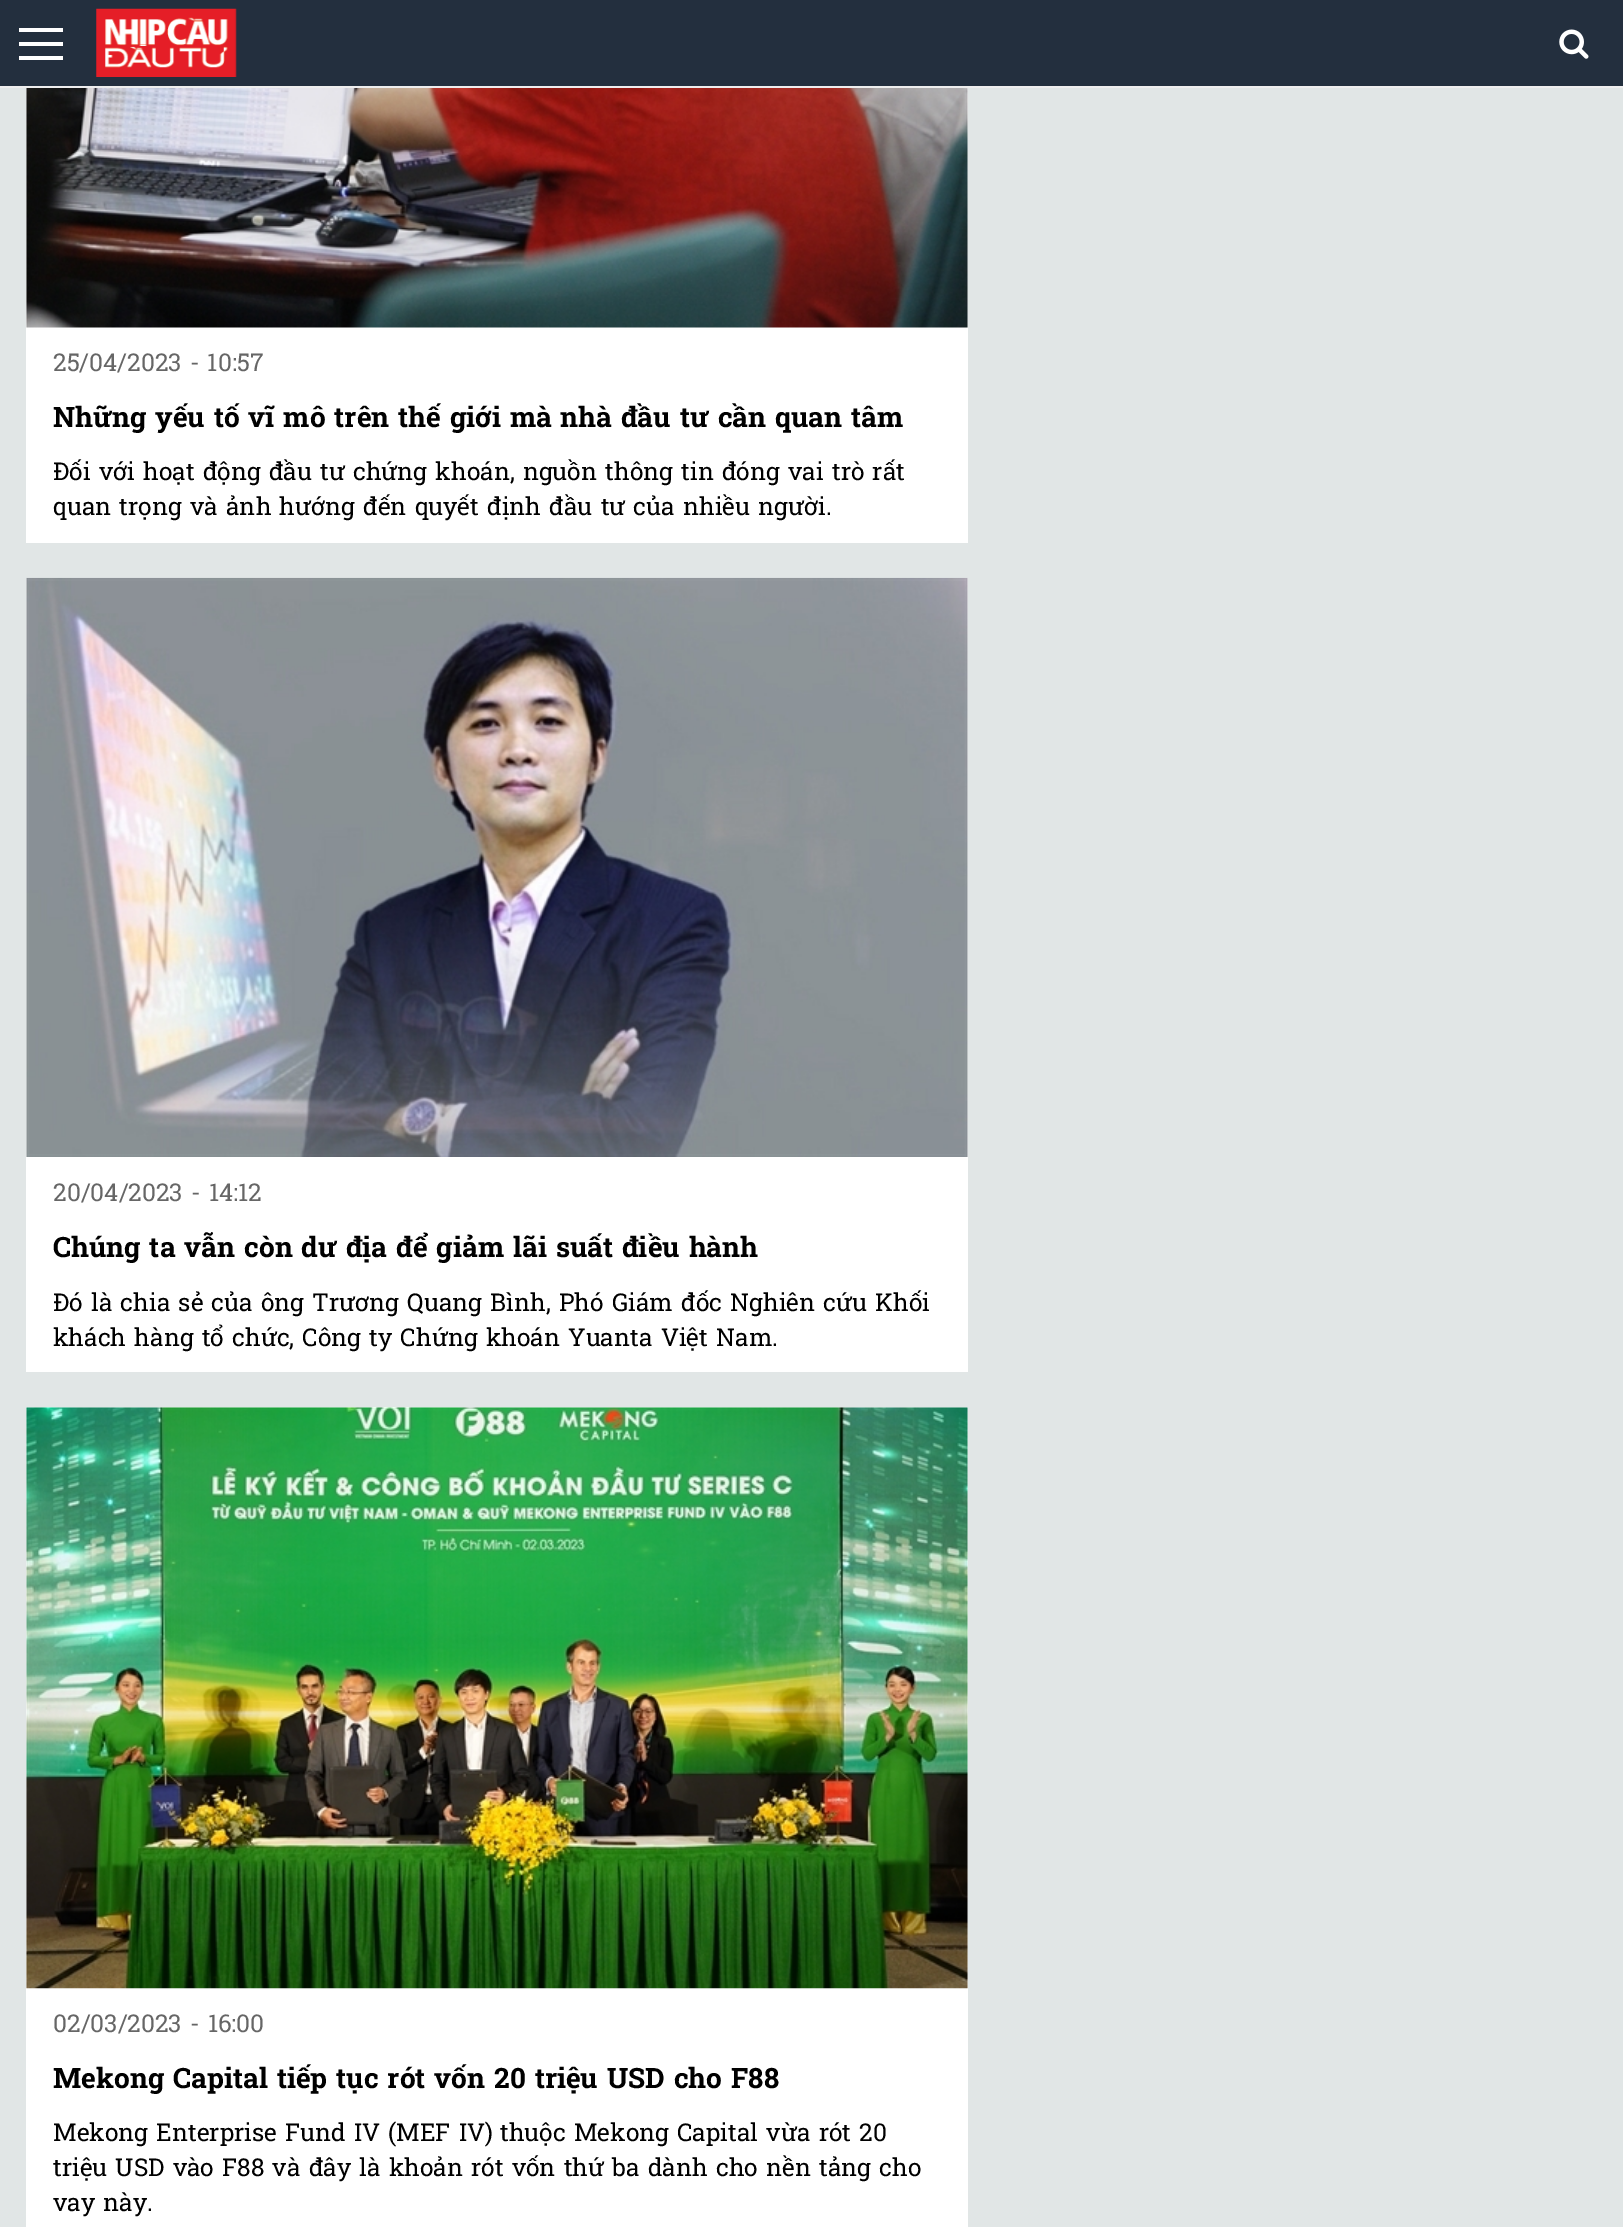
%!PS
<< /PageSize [1623 2227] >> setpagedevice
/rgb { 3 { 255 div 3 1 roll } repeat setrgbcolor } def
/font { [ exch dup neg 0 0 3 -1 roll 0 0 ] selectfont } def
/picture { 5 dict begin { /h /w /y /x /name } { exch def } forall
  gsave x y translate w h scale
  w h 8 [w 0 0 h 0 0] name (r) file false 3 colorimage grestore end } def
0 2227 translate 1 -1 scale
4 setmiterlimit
225 230 230 rgb
0 0 1623 2227 rectfill
[
  [0 0 1623 86 35 47 62]
  [0 86 1623 2 238 238 238]
  [19 28 44 4 255 255 255]
  [19 42 44 4 255 255 255]
  [19 56 44 4 255 255 255]
] { aload pop rgb rectfill } forall
(img/1.rgb) 96 8 141 69 picture
(img/2.rgb) 1559 29 30 30 picture
26 88 942 455 rectfill
(img/3.rgb) 26 88 942 240 picture
26 578 942 794 rectfill
(img/4.rgb) 26 577 942 580 picture
26 1407 942 820 rectfill
(img/5.rgb) 26 1407 942 582 picture
/RobotoSlab-Regular 24.5 font
102 102 102 rgb
53 371 moveto 2.1 0 32 (25/04/2023 - 10:57) widthshow
/RobotoSlab-Bold 28 font
0 0 0 rgb
53 427 moveto 2.1 0 32 (Những yếu tố vĩ mô trên thế giới mà nhà đầu tư cần quan tâm) widthshow
/RobotoSlab-Regular 24.5 font
53 480 moveto 2.1 0 32 (Đối với hoạt động đầu tư chứng khoán, nguồn thông tin đóng vai trò rất) widthshow
53 515 moveto 2.1 0 32 (quan trọng và ảnh hướng đến quyết định đầu tư của nhiều người.) widthshow
102 102 102 rgb
53 1201 moveto 2.1 0 32 (20/04/2023 - 14:12) widthshow
/RobotoSlab-Bold 28 font
0 0 0 rgb
53 1257 moveto 2.1 0 32 (Chúng ta vẫn còn dư địa để giảm lãi suất điều hành) widthshow
/RobotoSlab-Regular 24.5 font
53 1311 moveto 2.1 0 32 (Đó là chia sẻ của ông Trương Quang Bình, Phó Giám đốc Nghiên cứu Khối) widthshow
53 1346 moveto 2.1 0 32 (khách hàng tổ chức, Công ty Chứng khoán Yuanta Việt Nam.) widthshow
102 102 102 rgb
53 2032 moveto 2.1 0 32 (02/03/2023 - 16:00) widthshow
/RobotoSlab-Bold 28 font
0 0 0 rgb
53 2088 moveto 2.1 0 32 (Mekong Capital tiếp tục rót vốn 20 triệu USD cho F88) widthshow
/RobotoSlab-Regular 24.5 font
53 2141 moveto 2.1 0 32 (Mekong Enterprise Fund IV \(MEF IV\)) widthshow
500 2141 moveto 2.1 0 32 (thuộc Mekong Capital vừa rót 20) widthshow
53 2176 moveto 2.1 0 32 (triệu USD vào F88 và đây là khoản rót vốn thứ ba dành cho nền tảng cho) widthshow
53 2211 moveto 2.1 0 32 (vay này.) widthshow
showpage
